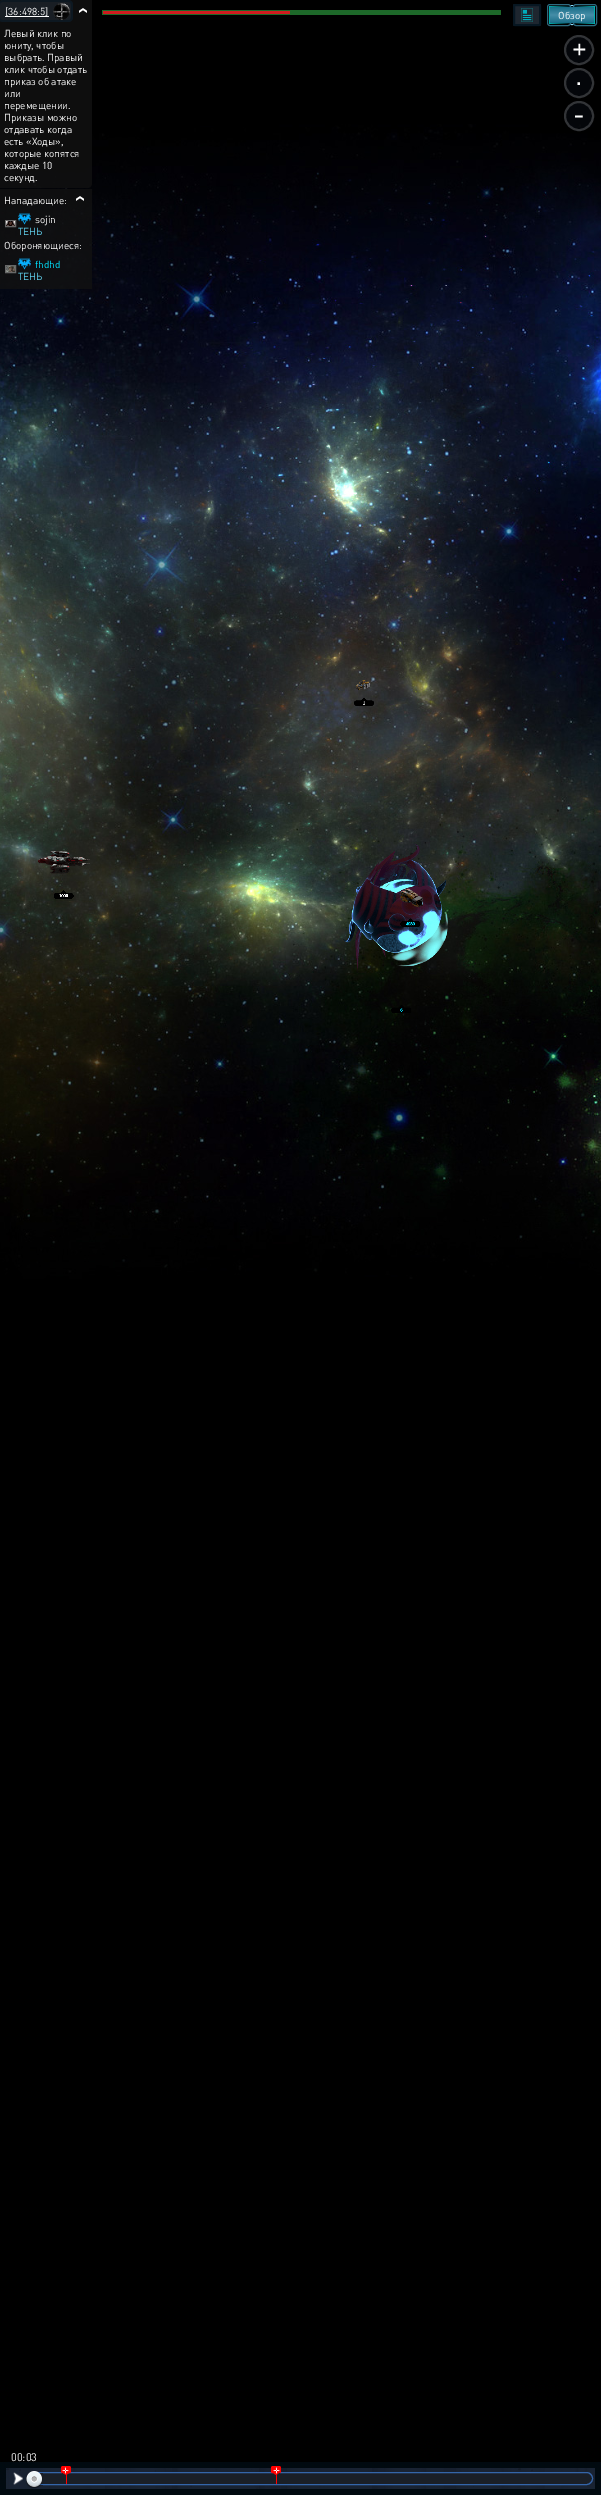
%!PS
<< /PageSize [601 2495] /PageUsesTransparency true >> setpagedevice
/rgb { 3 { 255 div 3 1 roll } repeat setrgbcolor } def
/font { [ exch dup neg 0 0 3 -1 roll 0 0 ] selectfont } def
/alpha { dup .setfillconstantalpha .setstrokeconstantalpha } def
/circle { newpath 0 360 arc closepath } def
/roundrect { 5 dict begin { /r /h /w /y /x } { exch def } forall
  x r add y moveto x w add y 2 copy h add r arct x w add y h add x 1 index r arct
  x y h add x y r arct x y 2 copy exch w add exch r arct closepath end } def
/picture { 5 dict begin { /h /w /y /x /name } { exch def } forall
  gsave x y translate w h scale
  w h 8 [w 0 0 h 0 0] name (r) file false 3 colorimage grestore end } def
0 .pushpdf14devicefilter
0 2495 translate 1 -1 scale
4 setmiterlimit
0 0 0 rgb
0 0 601 2495 rectfill
(img/9.rgb) 0 124 601 1155 picture
0.8 alpha
17 17 17 rgb
0 0 moveto 92 0 lineto 92 183 lineto 92 186 90 188 87 188 curveto 0 188 lineto closepath fill
1 alpha
25 30 36 rgb
-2 0 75 22 5 roundrect fill
0.5 alpha
1 19 31 rgb
3 0 moveto 0 1 lineto 0 5 lineto 0 3 1 2 3 2 curveto 68 2 lineto 70 2 71 3 71 5 curveto 71 17 lineto 71 19 70 20 68 20 curveto 3 20 lineto 1 20 0 19 0 17 curveto 0 21 lineto 1 22 2 22 3 22 curveto 68 22 lineto 71 22 73 20 73 17 curveto 73 5 lineto 73 2 71 0 68 0 curveto closepath fill
1 alpha
255 255 255 rgb
5 16 44 1 rectfill
(img/1.rgb) 53 3 17 17 picture
(img/2.rgb) 79 8 8 5 picture
0.8 alpha
[
  [0 189 92 100 17 17 17]
] { aload pop rgb rectfill } forall
1 alpha
[
  [102 10 399 5 29 104 41]
  [103 11 187 3 206 27 30]
] { aload pop rgb rectfill } forall
104 104 104 rgb
5.5 220.5 10 6 rectstroke
(img/3.rgb) 6 221 9 5 picture
(img/4.rgb) 18 213 13 12 picture
5.5 265.5 10 7 rectstroke
(img/5.rgb) 6 266 9 6 picture
(img/6.rgb) 18 258 13 12 picture
(img/7.rgb) 76 196 8 5 picture
30 38 47 rgb
513 4 28 22 2 roundrect fill
(img/8.rgb) 521 8 12 14 picture
0.8 alpha
1 19 31 rgb
2 setlinewidth
514 5 26 20 1 roundrect stroke
1 alpha
137 220 250 rgb
1 setlinewidth
569.5 5.5 5 19 2.5 roundrect stroke
gsave 549 6 46 18 3 roundrect clip newpath
<< /ShadingType 2 /ColorSpace /DeviceRGB /Coords [549 15 595 15] /Extend [true true] /Function << /FunctionType 3 /Domain [0 1] /Functions [<< /FunctionType 2 /Domain [0 1] /C0 [0.008 0.686 0.686] /C1 [0 0.012 0.039] /N 1 >> << /FunctionType 2 /Domain [0 1] /C0 [0 0.012 0.039] /C1 [0.008 0.686 0.686] /N 1 >>] /Bounds [0.5] /Encode [0 1 0 1] >> >> shfill grestore
46 107 128 rgb
547.5 4.5 23 21 2.5 roundrect stroke
573.5 4.5 23 21 2.5 roundrect stroke
gsave 550 7 44 16 3 roundrect clip newpath
<< /ShadingType 2 /ColorSpace /DeviceRGB /Coords [572 7 572 23] /Extend [true true] /Function << /FunctionType 3 /Domain [0 1] /Functions [<< /FunctionType 2 /Domain [0 1] /C0 [0.102 0.427 0.529] /C1 [0.271 0.553 0.655] /N 1 >> << /FunctionType 2 /Domain [0 1] /C0 [0.271 0.553 0.655] /C1 [0.102 0.427 0.529] /N 1 >>] /Bounds [0.5] /Encode [0 1 0 1] >> >> shfill grestore
4 6 10 rgb
579 50 15 circle fill
0.2 alpha
235 235 235 rgb
2 setlinewidth
579 50 14 circle stroke
1 alpha
4 6 10 rgb
579 83 15 circle fill
0.2 alpha
235 235 235 rgb
579 83 14 circle stroke
21 31 49 rgb
579 116 15 circle fill
235 235 235 rgb
579 116 14 circle stroke
1 alpha
1 10 16 rgb
6 setlinewidth
3 2465 595 27 rectstroke
(img/14.rgb) 6 2468 589 21 picture
(img/10.rgb) 13 2472 10 13 picture
26 31 39 rgb
31.5 2472.5 561 12 6 roundrect gsave fill grestore
52 101 169 rgb
1 setlinewidth
stroke
(img/11.rgb) 26 2471 17 18 picture
255 0 0 rgb
61 2466 10 7 2 roundrect fill
66 2473 1 11 rectfill
61 2472 moveto 71 2472 lineto 66 2475 lineto closepath fill
(img/12.rgb) 62 2467 7 7 picture
276 2473 1 11 rectfill
271 2466 10 7 2 roundrect fill
271 2472 moveto 281 2472 lineto 276 2475 lineto closepath fill
(img/13.rgb) 273 2467 7 7 picture
/DIN-Regular 10 font
255 255 255 rgb
[
  [([36:498:5]) 5 15]
  [(Левый клик по) 4 37]
  [(юниту, чтобы) 4 49]
  [(выбрать. Правый) 4 61]
  [(клик чтобы отдать) 4 73]
  [(приказ об атаке) 4 85]
  [(или) 4 97]
  [(перемещении.) 4 109]
  [(Приказы можно) 4 121]
  [(отдавать когда) 4 133]
  [(есть «Ходы»,) 4 145]
  [(которые копятся) 4 157]
  [(каждые 10) 4 169]
  [(секунд.) 4 181]
  [(Нападающие:) 4 204]
  [(sojin) 35 223]
] { aload pop moveto show } forall
96 207 236 rgb
18 235 moveto (ТЕНЬ) show
255 255 255 rgb
4 249 moveto (Обороняющиеся:) show
0 228 255 rgb
35 268 moveto (fhdhd) show
96 207 236 rgb
18 280 moveto (ТЕНЬ) show
255 255 255 rgb
558 19 moveto (Обзор) show
/DIN-Regular 28 font
[
  [(+) 572 57]
  [(.) 575 85]
  [(-) 573 124]
] { aload pop moveto show } forall
/DIN-Regular 11 font
11 2461 moveto (00:03) show
.poppdf14devicefilter showpage
